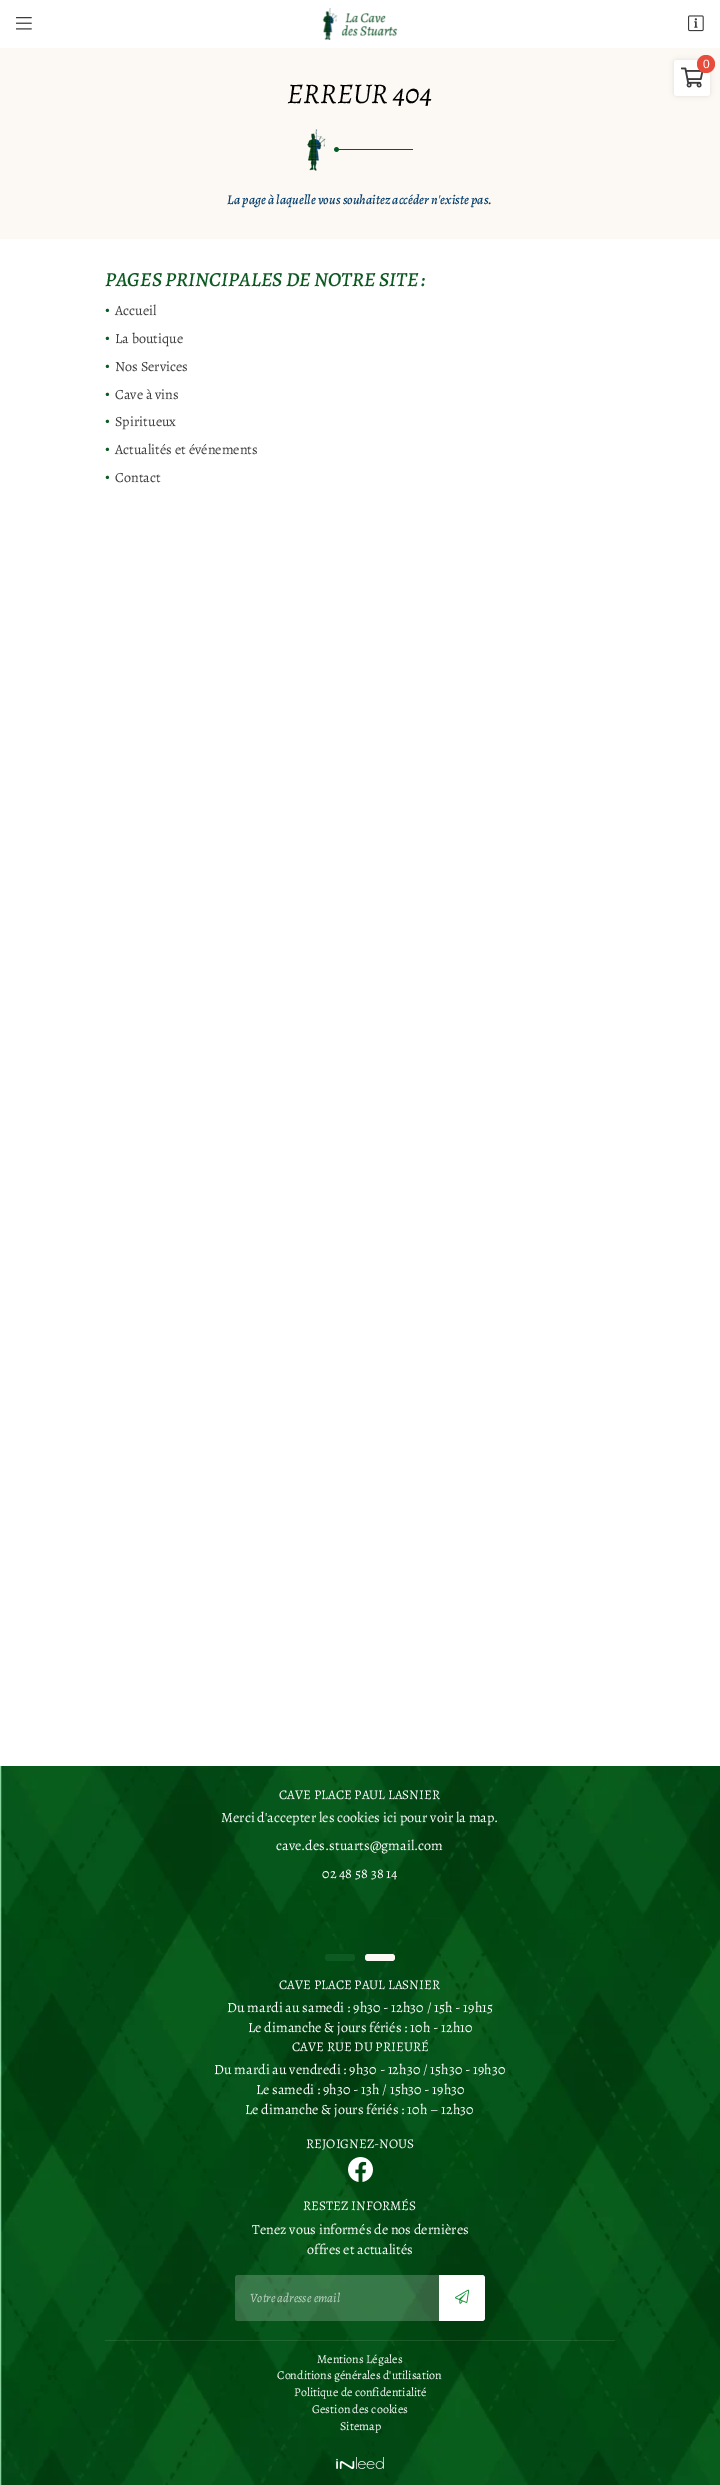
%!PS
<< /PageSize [720 2485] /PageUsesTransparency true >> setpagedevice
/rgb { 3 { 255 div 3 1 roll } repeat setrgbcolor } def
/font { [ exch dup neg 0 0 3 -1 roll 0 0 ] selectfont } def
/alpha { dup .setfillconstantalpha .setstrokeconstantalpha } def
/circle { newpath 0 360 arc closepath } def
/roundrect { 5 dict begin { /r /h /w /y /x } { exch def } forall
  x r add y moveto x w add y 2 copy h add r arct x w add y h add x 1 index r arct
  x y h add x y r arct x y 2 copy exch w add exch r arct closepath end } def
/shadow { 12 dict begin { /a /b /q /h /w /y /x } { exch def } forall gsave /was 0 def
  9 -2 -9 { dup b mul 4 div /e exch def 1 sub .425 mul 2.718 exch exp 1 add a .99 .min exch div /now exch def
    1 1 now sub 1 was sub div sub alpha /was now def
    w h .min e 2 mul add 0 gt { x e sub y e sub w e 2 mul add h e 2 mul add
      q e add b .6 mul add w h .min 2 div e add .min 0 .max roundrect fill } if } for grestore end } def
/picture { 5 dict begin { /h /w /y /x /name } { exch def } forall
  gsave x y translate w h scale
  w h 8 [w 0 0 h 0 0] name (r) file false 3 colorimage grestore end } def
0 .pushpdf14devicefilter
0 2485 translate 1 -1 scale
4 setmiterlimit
255 255 255 rgb
0 0 720 2485 rectfill
(img/1.rgb) 16 17 16 13 picture
(img/2.rgb) 322 8 76 32 picture
(img/3.rgb) 688 15 16 17 picture
252 248 243 rgb
0 48 720 191 rectfill
0 0 0 rgb
674 60 36 36 3 2.5 0.1 shadow
255 255 255 rgb
674 60 36 36 3 roundrect fill
(img/4.rgb) 681 67 23 21 picture
231 76 60 rgb
706 64 9 circle fill
(img/5.rgb) 307 129 106 42 picture
(img/6.rgb) 0 1766 720 719 picture
13 91 35 rgb
325 1954 30 7 3 roundrect fill
252 248 243 rgb
365 1954 30 7 3 roundrect fill
(img/7.rgb) 348 2157 25 25 picture
0.2 alpha
255 255 255 rgb
238 2275 moveto 463 2275 lineto 463 2321 lineto 238 2321 lineto 236.5 2321 235 2319.5 235 2318 curveto 235 2278 lineto 235 2276.5 236.5 2275 238 2275 curveto closepath fill
1 alpha
439 2275 moveto 482 2275 lineto 483.5 2275 485 2276.5 485 2278 curveto 485 2318 lineto 485 2319.5 483.5 2321 482 2321 curveto 439 2321 lineto closepath fill
(img/8.rgb) 455 2289 15 15 picture
0.1 alpha
105 2340 510 1 rectfill
1 alpha
(img/9.rgb) 336 2457 48 12 picture
/LiberationSans-Regular 12 font
703 68 moveto (0) show
/AlegreyaSC-Italic 28.5 font
0 0 0 rgb
287 103 moveto (ERREUR 404) show
/Alegreya-MediumItalic 13.3 font
6 64 111 rgb
227 204 moveto (La page à laquelle vous souhaitez accéder n'existe pas.) show
/AlegreyaSC-MediumItalic 20.1 font
13 91 35 rgb
105 286 moveto (PAGES PRINCIPALES DE NOTRE SITE :) show
/LiberationSerif-Regular 14.1 font
105 315 moveto (•) show
/Alegreya-Regular 14.1 font
60 60 60 rgb
115 315 moveto (Accueil) show
/LiberationSerif-Regular 14.1 font
13 91 35 rgb
105 343 moveto (•) show
/Alegreya-Regular 14.1 font
60 60 60 rgb
115 343 moveto (La boutique) show
/LiberationSerif-Regular 14.1 font
13 91 35 rgb
105 371 moveto (•) show
/Alegreya-Regular 14.1 font
60 60 60 rgb
115 371 moveto (Nos Services) show
/LiberationSerif-Regular 14.1 font
13 91 35 rgb
105 399 moveto (•) show
/Alegreya-Regular 14.1 font
60 60 60 rgb
115 399 moveto (Cave à vins) show
/LiberationSerif-Regular 14.1 font
13 91 35 rgb
105 426 moveto (•) show
/Alegreya-Regular 14.1 font
60 60 60 rgb
115 426 moveto (Spiritueux) show
/LiberationSerif-Regular 14.1 font
13 91 35 rgb
105 454 moveto (•) show
/Alegreya-Regular 14.1 font
60 60 60 rgb
115 454 moveto (Actualités et événements) show
/LiberationSerif-Regular 14.1 font
13 91 35 rgb
105 482 moveto (•) show
/Alegreya-Regular 14.1 font
60 60 60 rgb
115 482 moveto (Contact) show
/AlegreyaSC-Regular 13.3 font
255 255 255 rgb
279 1799 moveto (CAVE PLACE PAUL LASNIER) show
/Alegreya-Regular 14.1 font
[
  [(Merci d'accepter les cookies ici) 221 1822]
  [(pour voir la map.) 400 1822]
  [(cave.des.stuarts@gmail.com) 276 1850]
  [(02 48 58 38 14) 322 1878]
] { aload pop moveto show } forall
/AlegreyaSC-Regular 13.3 font
279 1989 moveto (CAVE PLACE PAUL LASNIER) show
/Alegreya-Regular 14.1 font
227 2012 moveto (Du mardi au samedi : 9h30 - 12h30 / 15h - 19h15) show
248 2032 moveto (Le dimanche & jours fériés : 10h - 12h10) show
/AlegreyaSC-Regular 13.3 font
292 2051 moveto (CAVE RUE DU PRIEURÉ) show
/Alegreya-Regular 14.1 font
[
  [(Du mardi au vendredi : 9h30 - 12h30 / 15h30 - 19h30) 214 2074]
  [(Le samedi : 9h30 - 13h / 15h30 - 19h30) 256 2094]
  [(Le dimanche & jours fériés : 10h – 12h30) 245 2114]
] { aload pop moveto show } forall
/AlegreyaSC-Regular 13.3 font
306 2148 moveto (REJOIGNEZ-NOUS) show
303 2210 moveto (RESTEZ INFORMÉS) show
/Alegreya-Regular 14.1 font
252 2234 moveto (Tenez vous informés de nos dernières) show
307 2254 moveto (offres et actualités) show
/Alegreya-Italic 12.75 font
195 214 200 rgb
250 2302 moveto (Votre adresse email) show
/Alegreya-Regular 12 font
255 255 255 rgb
[
  [(Mentions Légales) 317 2363]
  [(Conditions générales d'utilisation) 277 2379]
  [(Politique de confidentialité) 294 2396]
  [(Gestion des cookies) 312 2413]
  [(Sitemap) 340 2430]
] { aload pop moveto show } forall
.poppdf14devicefilter showpage
